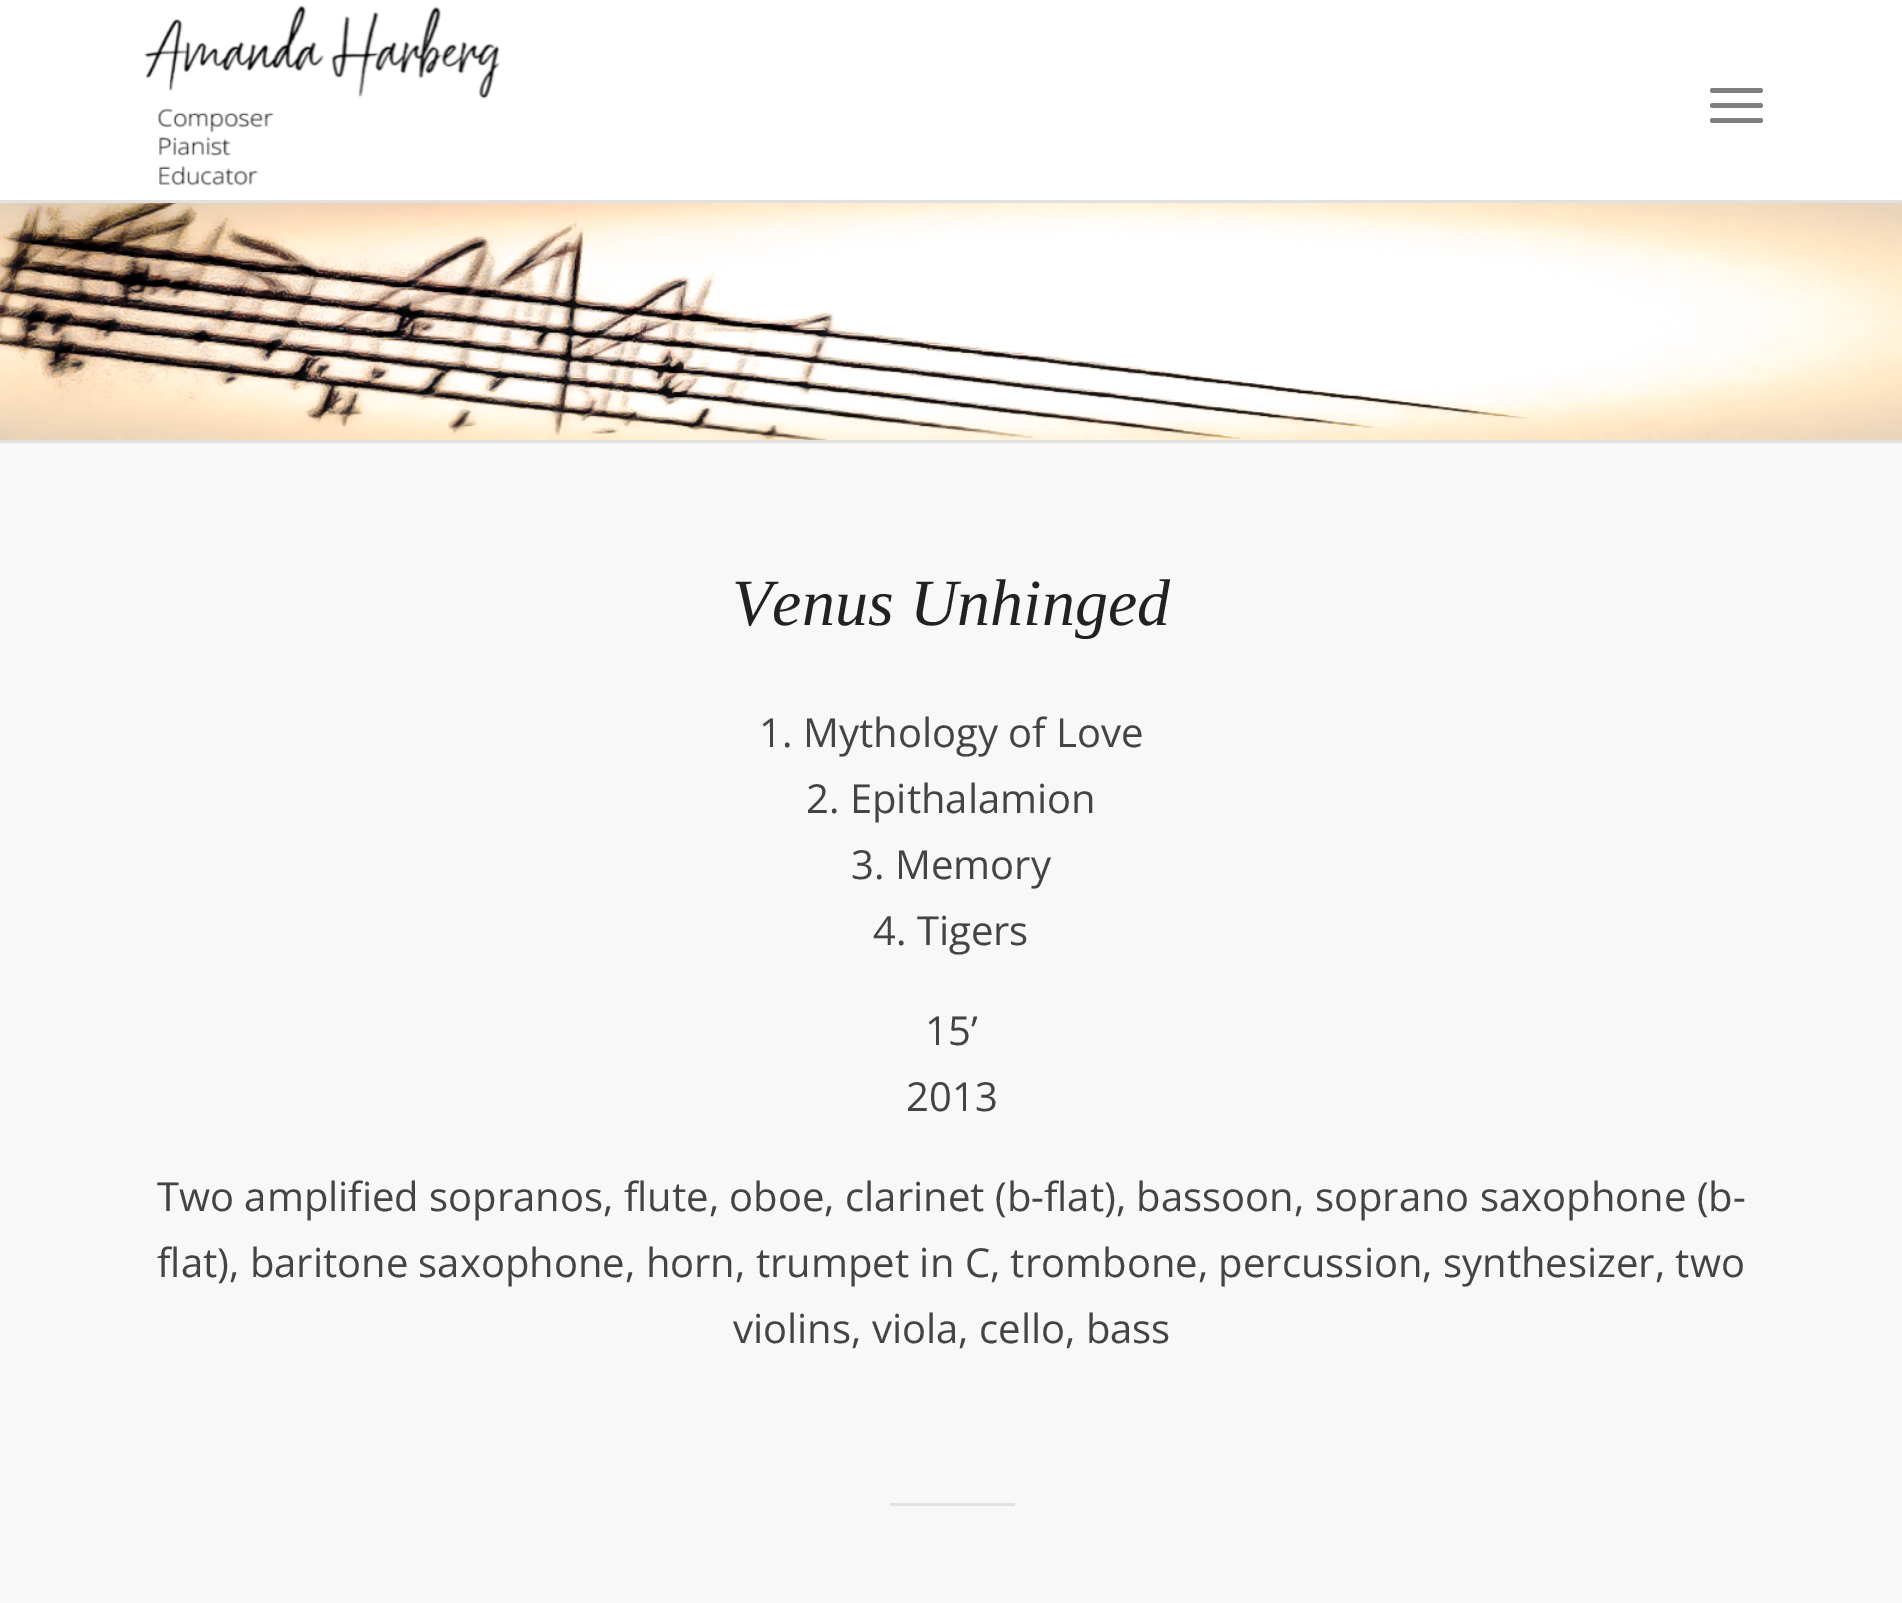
%!PS
<< /PageSize [1902 1603] >> setpagedevice
/rgb { 3 { 255 div 3 1 roll } repeat setrgbcolor } def
/font { [ exch dup neg 0 0 3 -1 roll 0 0 ] selectfont } def
/roundrect { 5 dict begin { /r /h /w /y /x } { exch def } forall
  x r add y moveto x w add y 2 copy h add r arct x w add y h add x 1 index r arct
  x y h add x y r arct x y 2 copy exch w add exch r arct closepath end } def
/picture { 5 dict begin { /h /w /y /x /name } { exch def } forall
  gsave x y translate w h scale
  w h 8 [w 0 0 h 0 0] name (r) file false 3 colorimage grestore end } def
0 1603 translate 1 -1 scale
4 setmiterlimit
255 255 255 rgb
0 0 1902 1603 rectfill
225 225 225 rgb
0 200 1902 3 rectfill
(img/1.rgb) 144 5 356 181 picture
128 128 128 rgb
1710 103 53 5 2.5 roundrect fill
1710 88 53 5 2.5 roundrect fill
1710 118 53 5 2.5 roundrect fill
(img/2.rgb) 0 203 1902 237 picture
[
  [0 443 1902 1160 248 248 248]
  [0 440 1902 3 225 225 225]
  [890 1503 125 3 225 225 225]
] { aload pop rgb rectfill } forall
/LiberationSerif-Italic 66 font
34 34 34 rgb
732 625 moveto (Venus Unhinged) show
/OpenSans-Regular 40 font
68 68 68 rgb
[
  [(1. Mythology of Love) 759 747]
  [(2. Epithalamion) 806 813]
  [(3. Memory) 851 879]
  [(4. Tigers) 873 945]
  [(15’) 925 1045]
  [(2013) 906 1111]
  [(Two amplified sopranos, flute, oboe, clarinet \(b-flat\), bassoon, soprano saxophone \(b-) 157 1211]
  [(flat\), baritone saxophone, horn, trumpet in C, trombone, percussion, synthesizer, two) 157 1277]
  [(violins, viola, cello, bass) 733 1343]
] { aload pop moveto show } forall
showpage
